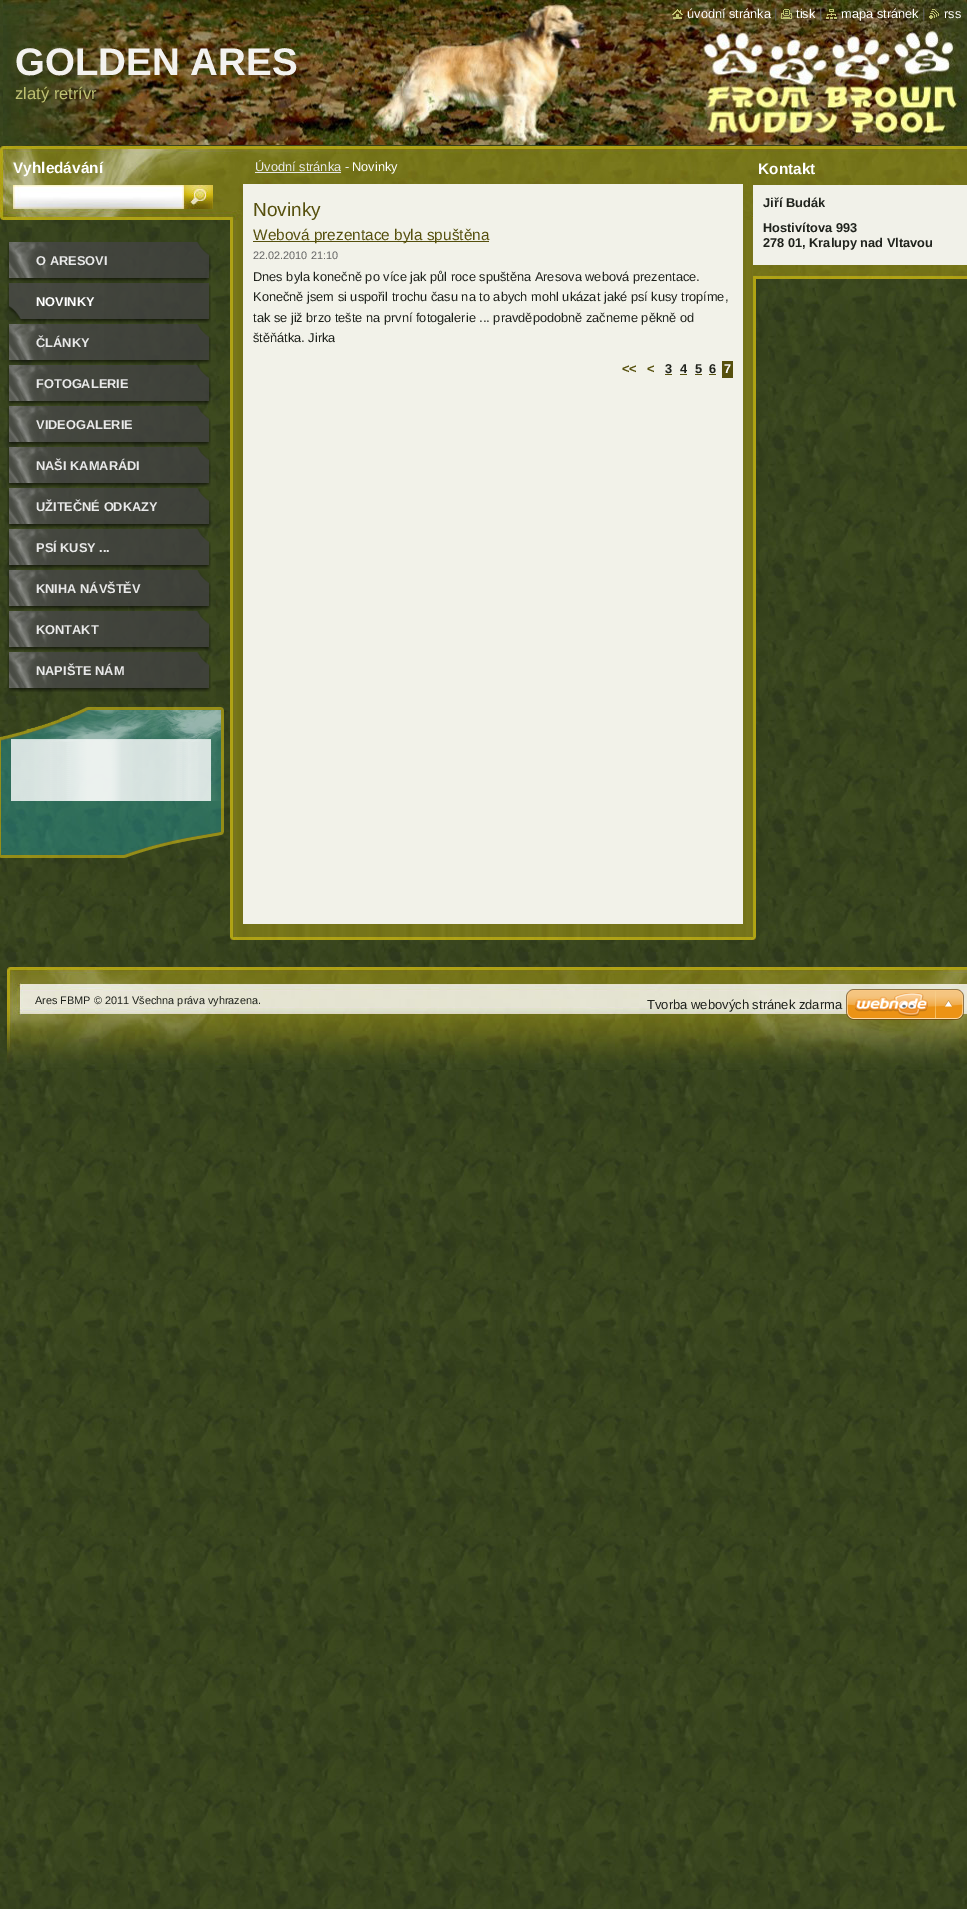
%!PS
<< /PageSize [967 1909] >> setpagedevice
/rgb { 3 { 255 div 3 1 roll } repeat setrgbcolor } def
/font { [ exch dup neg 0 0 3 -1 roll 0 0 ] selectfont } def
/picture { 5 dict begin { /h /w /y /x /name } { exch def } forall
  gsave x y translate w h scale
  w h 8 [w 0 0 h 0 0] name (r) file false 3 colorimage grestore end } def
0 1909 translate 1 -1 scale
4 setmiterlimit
255 255 255 rgb
0 0 967 1909 rectfill
(img/1.rgb) 0 1070 967 839 picture
(img/2.rgb) 0 0 967 1070 picture
(img/7.rgb) 3 0 964 145 picture
(img/3.rgb) 672 9 11 10 picture
(img/4.rgb) 781 9 11 10 picture
(img/5.rgb) 826 9 11 10 picture
(img/6.rgb) 929 9 10 10 picture
(img/8.rgb) 0 146 967 74 picture
(img/9.rgb) 13 185 171 24 picture
(img/10.rgb) 184 185 29 24 picture
(img/11.rgb) 230 220 526 717 picture
(img/12.rgb) 230 146 526 74 picture
[
  [255 172 86 1 233 233 233]
  [243 184 500 740 242 242 233]
  [253 241 236 1 86 80 13]
  [665 374 7 1 86 80 13]
  [680 374 7 1 86 80 13]
  [695 374 7 1 86 80 13]
  [709 374 7 1 86 80 13]
  [722 361 11 17 86 80 13]
] { aload pop rgb rectfill } forall
(img/13.rgb) 230 937 526 3 picture
241 241 233 rgb
753 185 214 80 rectfill
(img/14.rgb) 753 265 214 14 picture
(img/15.rgb) 7 242 204 40 picture
(img/16.rgb) 7 282 204 41 picture
(img/17.rgb) 7 324 204 40 picture
(img/18.rgb) 7 365 204 40 picture
(img/19.rgb) 7 406 204 40 picture
(img/20.rgb) 7 447 204 40 picture
(img/21.rgb) 7 488 204 40 picture
(img/22.rgb) 7 529 204 40 picture
(img/23.rgb) 7 570 204 40 picture
(img/24.rgb) 7 611 204 40 picture
(img/25.rgb) 7 652 204 40 picture
(img/26.rgb) 0 707 224 35 picture
(img/27.rgb) 0 742 224 59 picture
(img/28.rgb) 0 801 224 57 picture
(img/29.rgb) 7 967 960 103 picture
(img/30.rgb) 846 989 118 31 picture
/LiberationSans-Regular 12.8 font
255 255 255 rgb
687 18 moveto (úvodní stránka) show
100 100 100 rgb
774 18 moveto (|) show
255 255 255 rgb
796 18 moveto (tisk) show
100 100 100 rgb
819 18 moveto (|) show
255 255 255 rgb
841 18 moveto (mapa stránek) show
100 100 100 rgb
922 18 moveto (|) show
255 255 255 rgb
944 18 moveto (rss) show
/LiberationSans-Bold 38.5 font
243 242 239 rgb
15 75 moveto (GOLDEN ARES) show
/LiberationSans-Regular 16.5 font
191 194 115 rgb
15 99 moveto (zlatý retrívr) show
/LiberationSans-Bold 15.4 font
255 255 255 rgb
13 173 moveto (Vyhledávání) show
/LiberationSans-Regular 12.8 font
233 233 233 rgb
255 171 moveto (Úvodní stránka -) show
255 255 255 rgb
352 171 moveto (Novinky) show
/LiberationSans-Regular 19 font
86 80 13 rgb
253 216 moveto (Novinky) show
/LiberationSans-Regular 15.4 font
253 240 moveto (Webová prezentace byla spuštěna) show
/LiberationSans-Regular 10.9 font
100 100 100 rgb
253 259 moveto (22.02.2010 21:10) show
/LiberationSans-Regular 12.8 font
31 34 28 rgb
[
  [(Dnes byla konečně po více jak půl roce spuštěna Aresova webová prezentace.) 253 281]
  [(Konečně jsem si uspořil trochu času na to abych mohl ukázat jaké psí kusy tropíme,) 253 301]
  [(tak se již brzo tešte na první fotogalerie ... pravděpodobně začneme pěkně od) 253 322]
  [(štěňátka. Jirka) 253 342]
] { aload pop moveto show } forall
/LiberationSans-Bold 12.8 font
86 80 13 rgb
622 373 moveto (<<) show
647 373 moveto (<) show
31 34 28 rgb
[
  [(3) 665 373]
  [(4) 680 373]
  [(5) 695 373]
  [(6) 709 373]
] { aload pop moveto show } forall
255 255 255 rgb
724 373 moveto (7) show
/LiberationSans-Bold 15.4 font
758 174 moveto (Kontakt) show
/LiberationSans-Bold 12.8 font
31 34 28 rgb
[
  [(Jiří Budák) 763 207]
  [(Hostivítova 993) 763 232]
  [(278 01, Kralupy nad Vltavou) 763 247]
] { aload pop moveto show } forall
233 233 233 rgb
36 265 moveto (O ARESOVI) show
255 255 255 rgb
36 306 moveto (NOVINKY) show
233 233 233 rgb
[
  [(ČLÁNKY) 36 347]
  [(FOTOGALERIE) 36 388]
  [(VIDEOGALERIE) 36 429]
  [(NAŠI KAMARÁDI) 36 470]
  [(UŽITEČNÉ ODKAZY) 36 511]
  [(PSÍ KUSY ...) 36 552]
  [(KNIHA NÁVŠTĚV) 36 593]
  [(KONTAKT) 36 634]
  [(NAPIŠTE NÁM) 36 675]
] { aload pop moveto show } forall
/LiberationSans-Regular 10.9 font
31 34 28 rgb
35 1004 moveto (Ares FBMP © 2011 Všechna práva vyhrazena.) show
/LiberationSans-Regular 13 font
647 1009 moveto (Tvorba webových stránek zdarma) show
showpage
